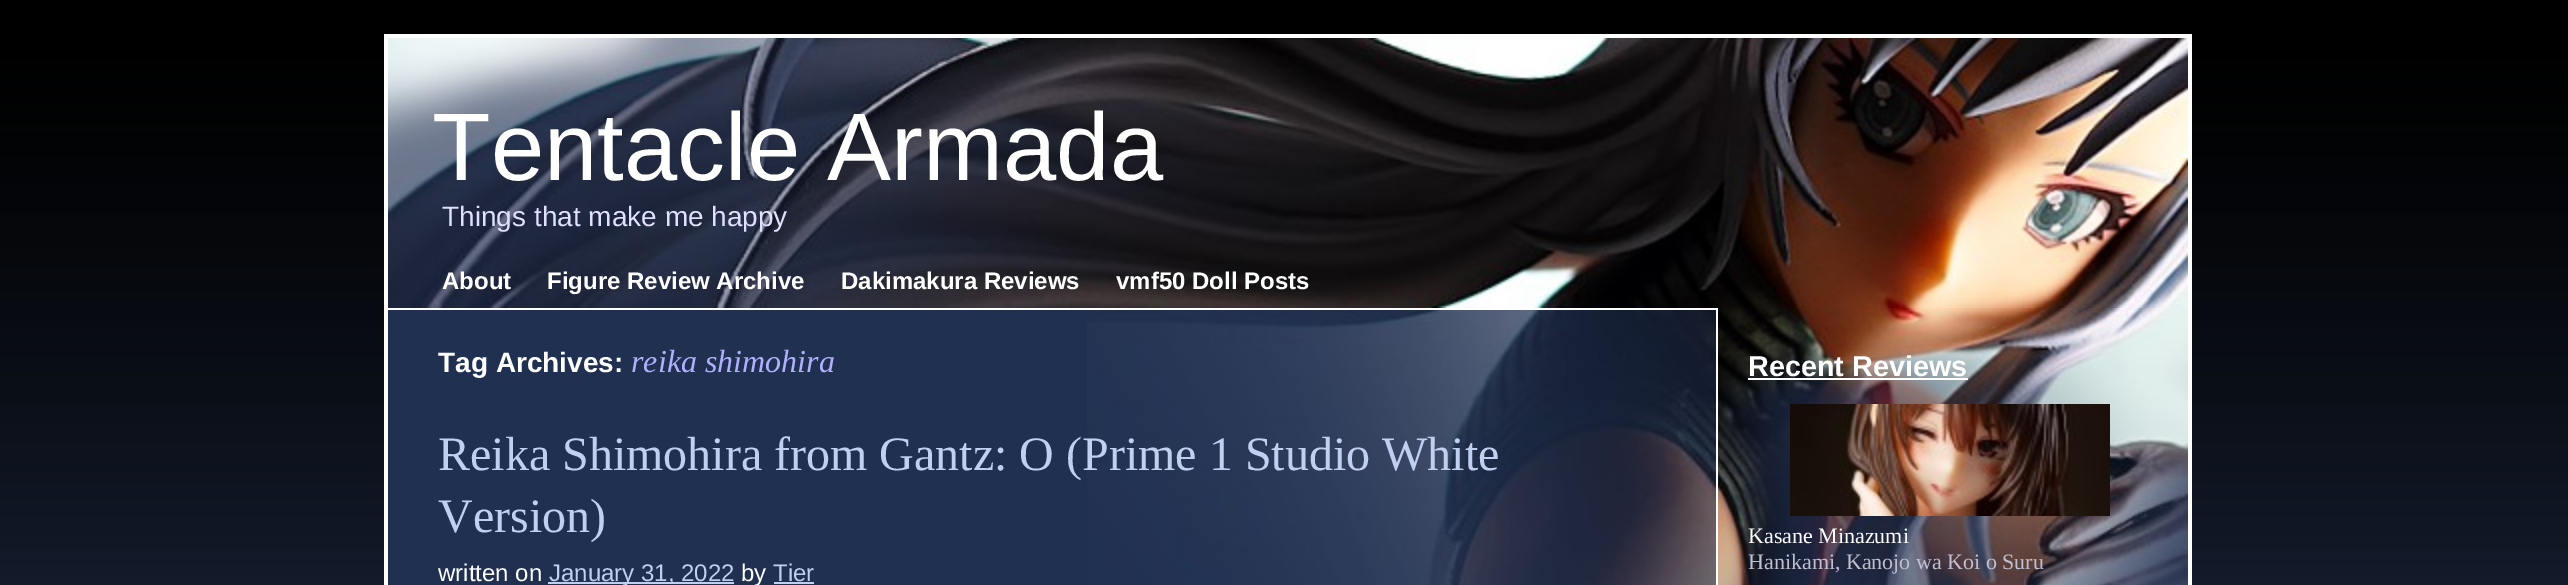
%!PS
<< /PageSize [2568 585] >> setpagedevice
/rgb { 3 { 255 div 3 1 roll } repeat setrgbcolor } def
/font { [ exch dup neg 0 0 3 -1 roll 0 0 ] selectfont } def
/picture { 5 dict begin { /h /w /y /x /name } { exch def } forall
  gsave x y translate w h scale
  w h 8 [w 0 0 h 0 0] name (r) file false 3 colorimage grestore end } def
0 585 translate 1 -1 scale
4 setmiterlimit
255 255 255 rgb
0 0 2568 585 rectfill
(img/1.rgb) 0 0 2568 585 picture
(img/2.rgb) 388 38 1800 270 picture
[
  [384 34 1808 4 255 255 255]
  [2188 34 4 274 255 255 255]
  [384 34 4 274 255 255 255]
  [388 310 699 275 32 48 80]
  [2188 308 4 277 255 255 255]
  [384 308 4 277 255 255 255]
] { aload pop rgb rectfill } forall
(img/3.rgb) 1087 310 629 275 picture
[
  [388 308 1330 2 255 255 255]
  [1716 308 2 277 255 255 255]
  [548 582 186 2 192 208 240]
  [774 582 40 2 192 208 240]
] { aload pop rgb rectfill } forall
(img/4.rgb) 1718 308 470 277 picture
255 255 255 rgb
1748 378 220 2 rectfill
(img/5.rgb) 1790 404 320 112 picture
/LiberationSans-Regular 96 font
432 180 moveto (Tentacle Armada) show
/LiberationSans-Regular 28 font
224 224 255 rgb
442 226 moveto (Things that make me happy) show
/LiberationSans-Bold 24 font
255 255 255 rgb
[
  [(About) 442 289]
  [(Figure Review Archive) 547 289]
  [(Dakimakura Reviews) 841 289]
  [(vmf50 Doll Posts) 1116 289]
] { aload pop moveto show } forall
/LiberationSans-Bold 28 font
438 372 moveto (Tag Archives:) show
/LiberationSerif-Italic 32 font
176 176 255 rgb
631 372 moveto (reika shimohira) show
/LiberationSerif-Regular 48 font
192 208 240 rgb
438 470 moveto (Reika Shimohira from Gantz: O \(Prime 1 Studio White) show
438 532 moveto (Version\)) show
/LiberationSans-Regular 24 font
255 255 255 rgb
438 581 moveto (written on) show
192 208 240 rgb
549 581 moveto (January 31, 2022) show
255 255 255 rgb
741 581 moveto (by) show
192 208 240 rgb
773 581 moveto (Tier) show
/LiberationSans-Bold 28.75 font
255 255 255 rgb
1748 376 moveto (Recent Reviews) show
/LiberationSerif-Regular 22 font
1748 543 moveto (Kasane Minazumi) show
192 192 208 rgb
1748 569 moveto (Hanikami, Kanojo wa Koi o Suru) show
showpage
